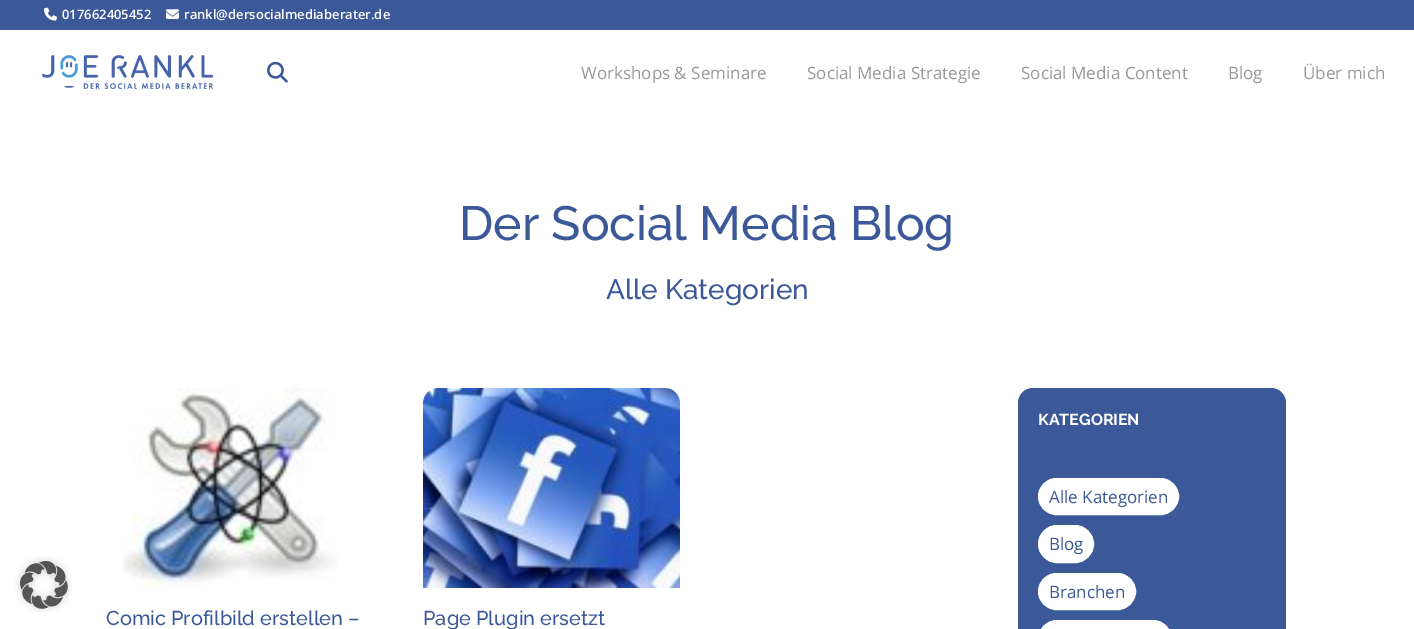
%!PS
<< /PageSize [1414 629] >> setpagedevice
/rgb { 3 { 255 div 3 1 roll } repeat setrgbcolor } def
/font { [ exch dup neg 0 0 3 -1 roll 0 0 ] selectfont } def
/roundrect { 5 dict begin { /r /h /w /y /x } { exch def } forall
  x r add y moveto x w add y 2 copy h add r arct x w add y h add x 1 index r arct
  x y h add x y r arct x y 2 copy exch w add exch r arct closepath end } def
/picture { 5 dict begin { /h /w /y /x /name } { exch def } forall
  gsave x y translate w h scale
  w h 8 [w 0 0 h 0 0] name (r) file false 3 colorimage grestore end } def
0 629 translate 1 -1 scale
4 setmiterlimit
255 255 255 rgb
0 0 1414 629 rectfill
59 89 152 rgb
0 0 1414 30 rectfill
(img/1.rgb) 44 7 13 14 picture
(img/2.rgb) 166 9 13 10 picture
(img/3.rgb) 42 55 171 34 picture
(img/4.rgb) 267 61 21 22 picture
(img/5.rgb) 15 556 57 57 picture
1018 388 268 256 15 roundrect fill
255 255 255 rgb
1038.5 478.5 140 36 18 roundrect gsave fill grestore
stroke
1038.5 525.5 55 37 18.5 roundrect gsave fill grestore
stroke
1038.5 573.5 97 36 18 roundrect gsave fill grestore
stroke
1038.5 620.5 133 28 18.5 roundrect gsave fill grestore
stroke
(img/6.rgb) 122 388 216 200 picture
(img/7.rgb) 423 388 257 200 picture
/OpenSans-SemiBold 13 font
62 19 moveto (017662405452) show
184 19 moveto (rankl@dersocialmediaberater.de) show
/OpenSans-Regular 17 font
153 153 153 rgb
[
  [(Workshops & Seminare) 581 79]
  [(Social Media Strategie) 807 79]
  [(Social Media Content) 1021 79]
  [(Blog) 1228 79]
  [(Über mich) 1303 79]
] { aload pop moveto show } forall
/Raleway-Thin 48 font
59 88 152 rgb
459 240 moveto (Der Social Media Blog) show
/Raleway-Thin 28 font
606 299 moveto (Alle Kategorien) show
/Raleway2-Thin 16 font
255 255 255 rgb
1038 425 moveto (KATEGORIEN) show
/OpenSans-Regular 17 font
59 88 152 rgb
[
  [(Alle Kategorien) 1049 503]
  [(Blog) 1049 550]
  [(Branchen) 1049 598]
] { aload pop moveto show } forall
/Raleway-Thin 20 font
106 625 moveto (Comic Profilbild erstellen –) show
423 625 moveto (Page Plugin ersetzt) show
showpage
